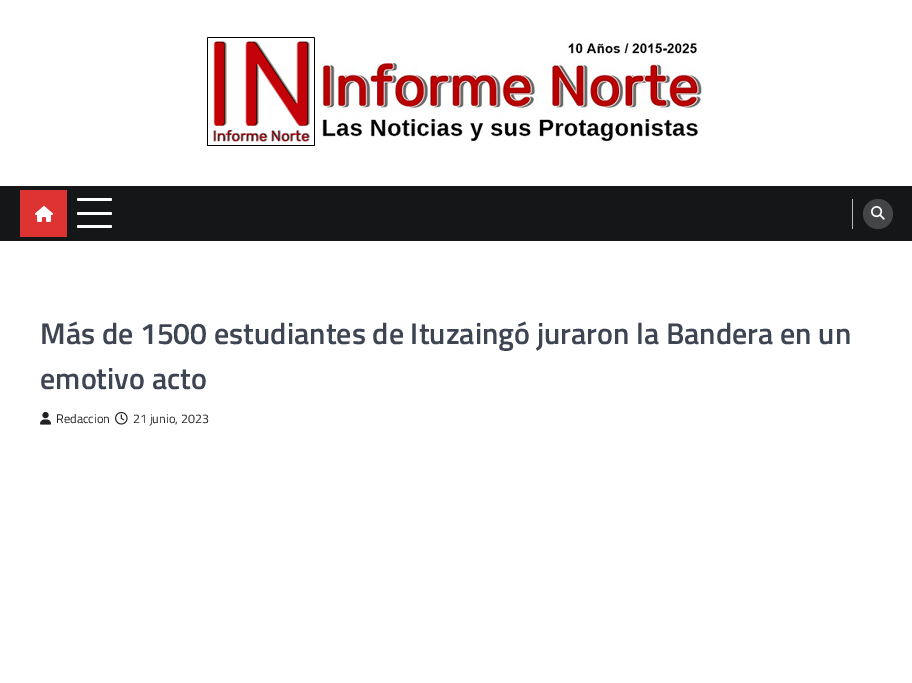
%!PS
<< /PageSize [912 683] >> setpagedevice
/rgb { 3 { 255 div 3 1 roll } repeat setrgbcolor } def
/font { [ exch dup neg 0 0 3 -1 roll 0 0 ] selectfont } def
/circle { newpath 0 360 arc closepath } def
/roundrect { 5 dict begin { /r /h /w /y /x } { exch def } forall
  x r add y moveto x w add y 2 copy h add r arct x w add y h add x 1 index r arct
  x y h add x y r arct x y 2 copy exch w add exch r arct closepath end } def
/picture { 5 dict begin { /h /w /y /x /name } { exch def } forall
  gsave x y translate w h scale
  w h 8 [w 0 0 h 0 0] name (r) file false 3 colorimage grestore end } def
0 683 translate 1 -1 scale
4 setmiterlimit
255 255 255 rgb
0 0 912 683 rectfill
(img/1.rgb) 207 37 496 109 picture
21 22 24 rgb
0 186 912 55 rectfill
221 51 51 rgb
20 190 47 47 rectfill
(img/2.rgb) 35 206 18 16 picture
255 255 255 rgb
77 198 35 3 1.5 roundrect fill
77 212 35 3 1.5 roundrect fill
77 225 35 3 1.5 roundrect fill
185 185 186 rgb
852 199 1 30 rectfill
68 69 70 rgb
878 214 15 circle fill
(img/3.rgb) 871 206 14 14 picture
(img/4.rgb) 40 411 11 14 picture
(img/5.rgb) 115 411 13 14 picture
/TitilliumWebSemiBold-SemiBold 30.1 font
61 68 82 rgb
40 344 moveto (Más de 1500 estudiantes de Ituzaingó juraron la Bandera en un) show
40 389 moveto (emotivo acto) show
/TitilliumWeb-Regular 12.5 font
32 33 36 rgb
56 423 moveto (Redaccion) show
133 423 moveto (21 junio, 2023) show
showpage
